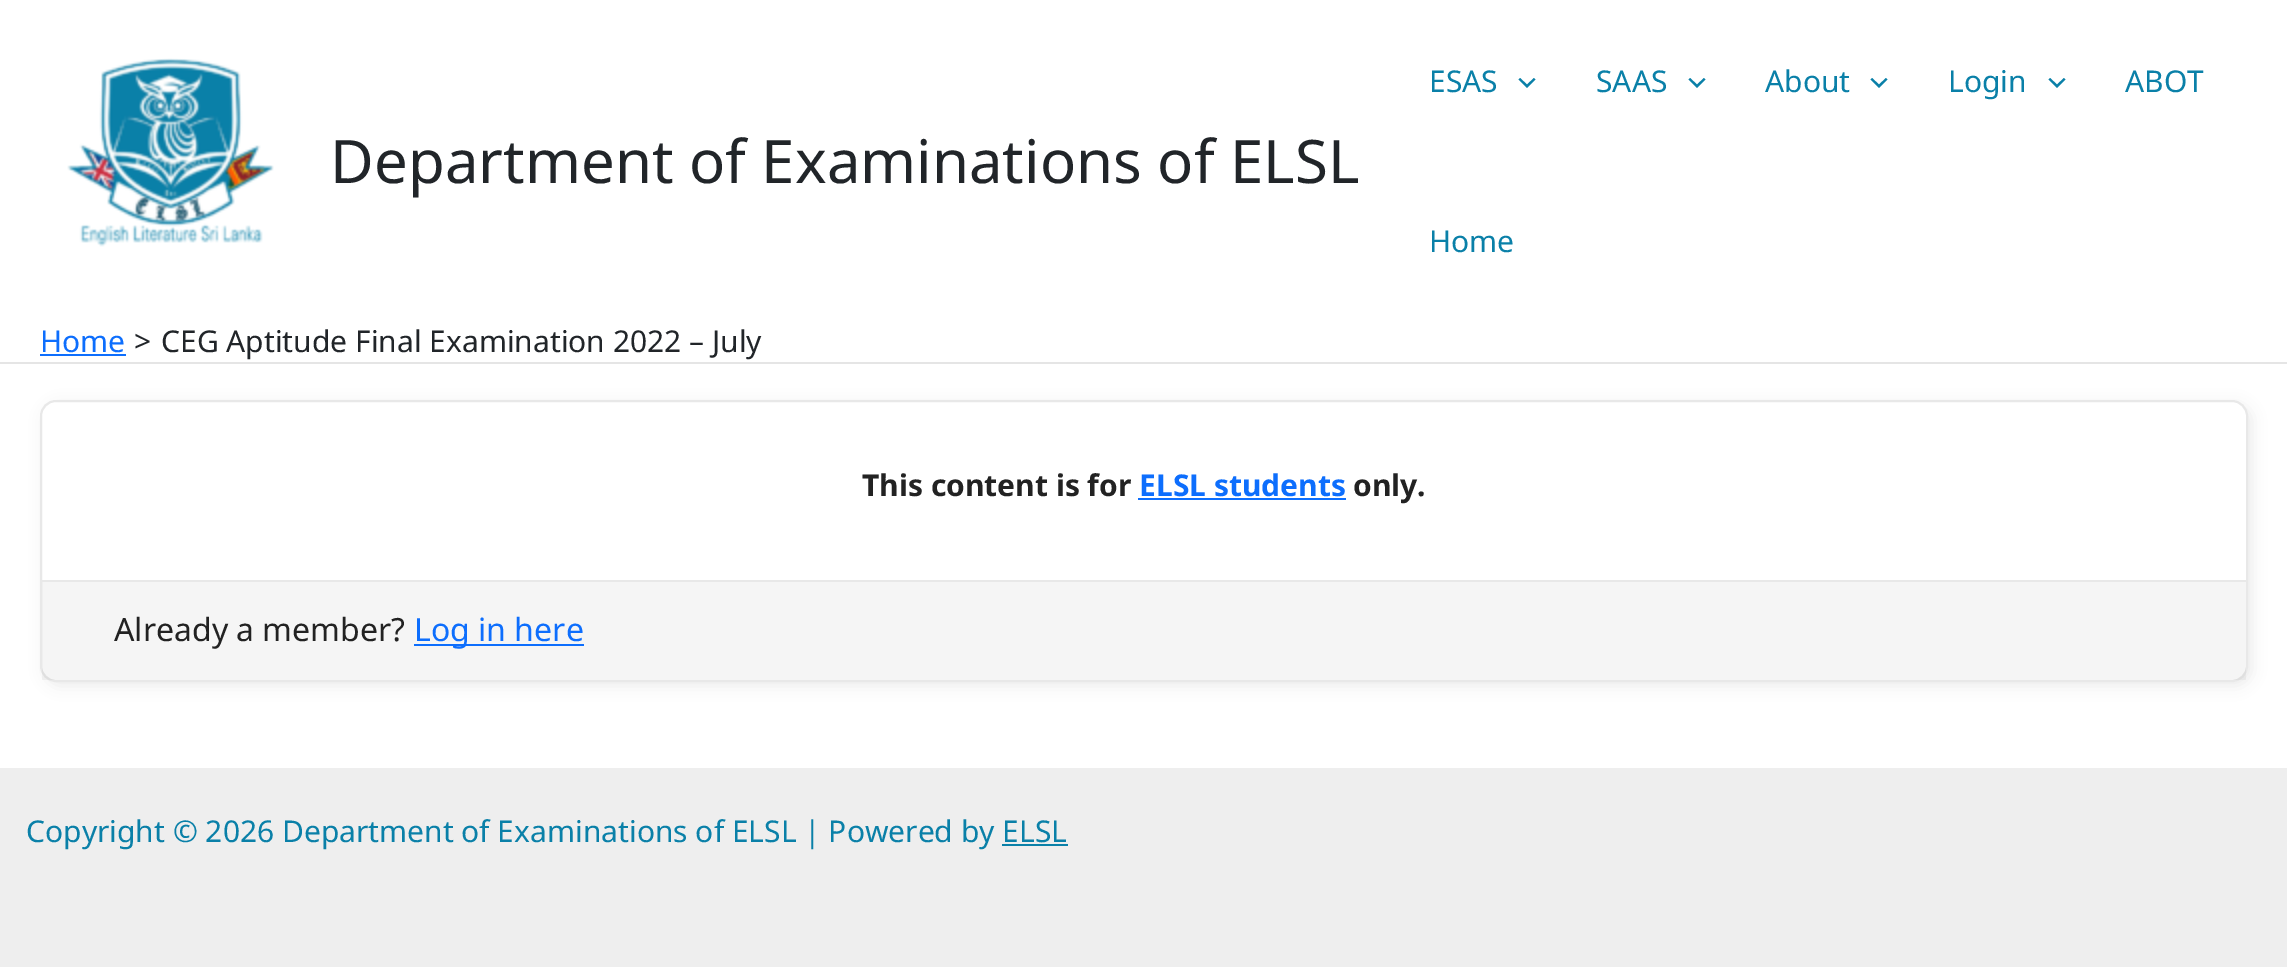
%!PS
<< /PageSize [2287 967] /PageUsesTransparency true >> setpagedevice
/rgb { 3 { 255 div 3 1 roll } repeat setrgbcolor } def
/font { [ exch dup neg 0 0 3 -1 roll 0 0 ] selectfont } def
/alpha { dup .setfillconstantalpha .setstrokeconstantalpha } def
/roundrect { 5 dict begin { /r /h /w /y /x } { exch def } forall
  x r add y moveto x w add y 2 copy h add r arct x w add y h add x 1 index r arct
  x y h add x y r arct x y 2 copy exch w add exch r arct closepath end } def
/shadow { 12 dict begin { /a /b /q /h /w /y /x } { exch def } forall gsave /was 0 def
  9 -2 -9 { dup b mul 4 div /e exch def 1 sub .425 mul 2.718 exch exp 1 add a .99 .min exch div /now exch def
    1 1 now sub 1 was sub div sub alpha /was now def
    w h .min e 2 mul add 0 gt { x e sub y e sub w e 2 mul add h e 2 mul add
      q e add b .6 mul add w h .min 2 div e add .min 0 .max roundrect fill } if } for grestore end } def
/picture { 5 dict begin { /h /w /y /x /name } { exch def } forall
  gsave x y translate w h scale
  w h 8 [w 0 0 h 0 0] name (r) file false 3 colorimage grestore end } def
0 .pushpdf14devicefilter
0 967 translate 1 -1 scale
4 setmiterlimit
255 255 255 rgb
0 0 2287 967 rectfill
229 229 229 rgb
0 362 2287 2 rectfill
(img/1.rgb) 67 58 207 189 picture
10 128 168 rgb
1518.5 79.5 moveto 1527 88 lineto 1535.5 79.5 lineto 1534 78 lineto 1527 84.5 lineto 1520 78 lineto closepath fill
1688.5 79.5 moveto 1697 88 lineto 1705.5 79.5 lineto 1704 78 lineto 1697 84.5 lineto 1690 78 lineto closepath fill
1870.5 79.5 moveto 1879 88 lineto 1887.5 79.5 lineto 1886 78 lineto 1879 84.5 lineto 1872 78 lineto closepath fill
2048.5 79.5 moveto 2057 88 lineto 2065.5 79.5 lineto 2064 78 lineto 2057 84.5 lineto 2050 78 lineto closepath fill
13 110 253 rgb
40 354 86 2 rectfill
0 0 0 rgb
44 404 2208 282 16 7 0.07 shadow
255 255 255 rgb
41 401 2206 280 15 roundrect gsave fill grestore
232 232 232 rgb
2 setlinewidth
stroke
[
  [1138 498 208 2 13 110 253]
] { aload pop rgb rectfill } forall
0.04 alpha
[
  [42 582 2204 98 0 0 0]
] { aload pop rgb rectfill } forall
1 alpha
[
  [42 580 2204 2 232 232 232]
  [414 644 170 2 13 110 253]
  [0 768 2287 199 238 238 238]
  [1002 844 66 2 10 128 168]
] { aload pop rgb rectfill } forall
/NotoSans-Regular 60 font
33 37 41 rgb
330 183 moveto (Department of Examinations of ELSL) show
/NotoSans-Regular 30 font
10 128 168 rgb
[
  [(ESAS) 1429 92]
  [(SAAS) 1596 92]
  [(About) 1765 92]
  [(Login) 1948 92]
  [(ABOT) 2125 92]
  [(Home) 1429 252]
] { aload pop moveto show } forall
13 110 253 rgb
40 352 moveto (Home) show
33 37 41 rgb
134 352 moveto (>) show
161 352 moveto (CEG Aptitude Final Examination 2022 – July) show
/NotoSans-Bold 30 font
34 34 34 rgb
862 496 moveto (This content is for) show
13 110 253 rgb
1139 496 moveto (ELSL students) show
34 34 34 rgb
1353 496 moveto (only.) show
/NotoSans-Regular 32 font
114 641 moveto (Already a member?) show
13 110 253 rgb
414 641 moveto (Log in here) show
/NotoSans-Regular 30 font
10 128 168 rgb
26 842 moveto (Copyright © 2026 Department of Examinations of ELSL | Powered by ELSL) show
.poppdf14devicefilter showpage
